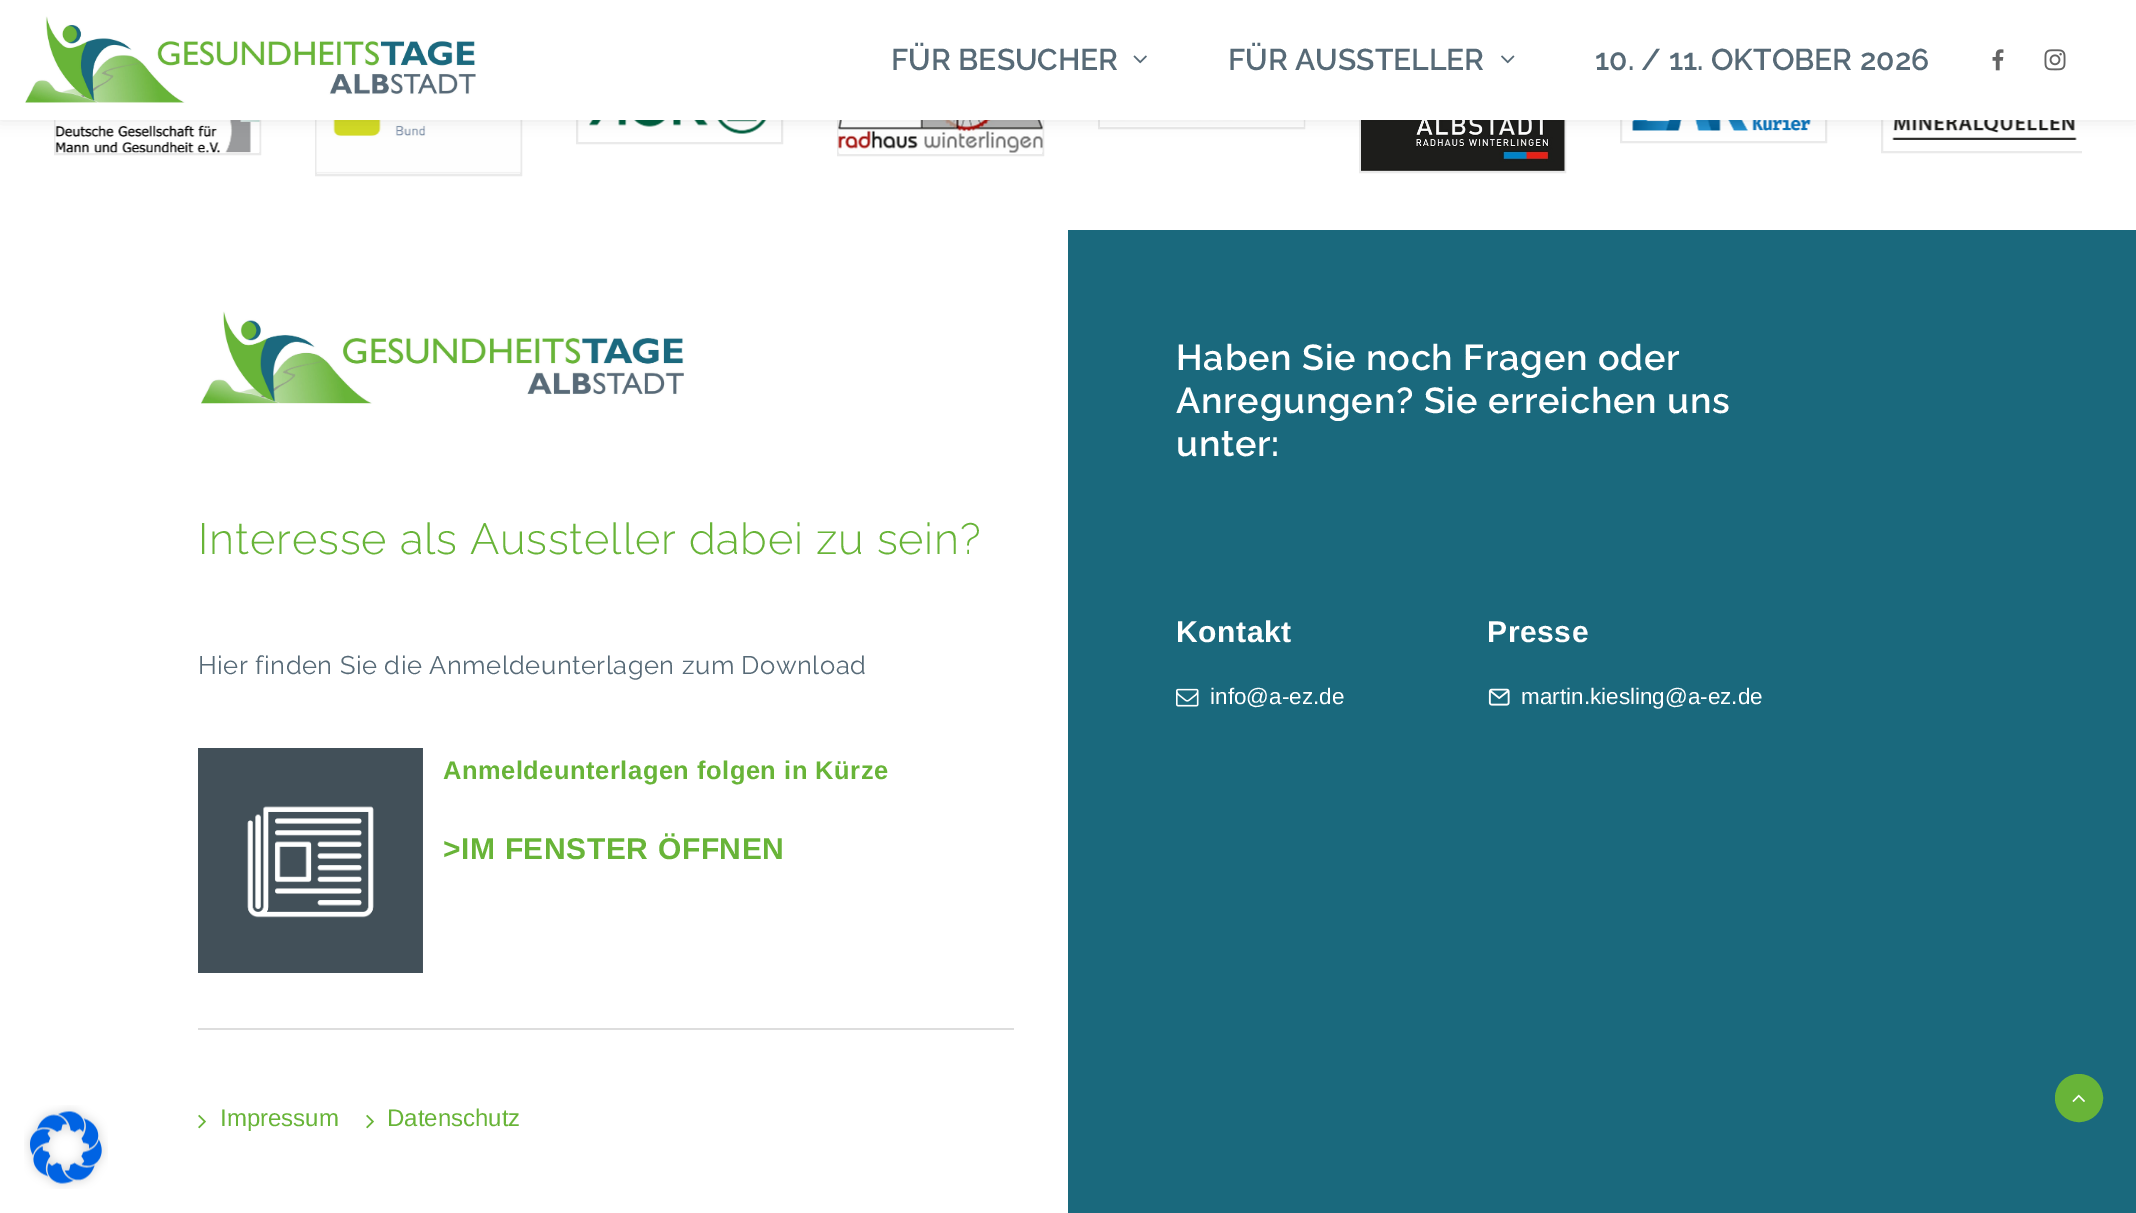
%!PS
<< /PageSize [2136 1213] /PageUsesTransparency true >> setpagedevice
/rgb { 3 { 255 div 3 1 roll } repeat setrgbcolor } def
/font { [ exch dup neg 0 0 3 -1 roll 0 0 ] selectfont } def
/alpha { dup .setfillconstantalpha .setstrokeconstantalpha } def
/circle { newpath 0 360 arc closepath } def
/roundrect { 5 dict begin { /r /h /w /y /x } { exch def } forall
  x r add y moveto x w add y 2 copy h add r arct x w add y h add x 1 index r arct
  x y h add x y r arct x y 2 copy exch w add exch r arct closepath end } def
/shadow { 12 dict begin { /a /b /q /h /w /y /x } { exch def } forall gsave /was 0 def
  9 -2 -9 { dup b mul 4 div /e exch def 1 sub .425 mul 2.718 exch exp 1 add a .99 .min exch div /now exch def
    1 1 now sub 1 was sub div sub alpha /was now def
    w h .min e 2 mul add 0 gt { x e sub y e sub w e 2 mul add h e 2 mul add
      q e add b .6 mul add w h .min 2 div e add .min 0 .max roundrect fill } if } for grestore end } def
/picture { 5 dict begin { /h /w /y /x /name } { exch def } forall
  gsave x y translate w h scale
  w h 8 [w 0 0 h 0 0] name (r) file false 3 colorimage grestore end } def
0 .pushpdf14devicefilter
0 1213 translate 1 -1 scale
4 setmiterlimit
255 255 255 rgb
0 0 2136 1213 rectfill
234 234 234 rgb
2 setlinewidth
55 58 205 96 rectstroke
(img/6.rgb) 55 120 205 33 picture
316 37 205 138 rectstroke
(img/7.rgb) 316 120 205 54 picture
577 69 205 74 rectstroke
(img/8.rgb) 589 120 178 14 picture
838 57 205 98 rectstroke
(img/9.rgb) 838 120 205 33 picture
1099 84 205 44 rectstroke
(img/10.rgb) 1100 120 204 7 picture
1360 40 205 132 rectstroke
(img/11.rgb) 1361 120 204 51 picture
1621 70 205 72 rectstroke
(img/12.rgb) 1632 120 179 11 picture
gsave
54 36 2028 140 rectclip
1882 60 205 92 rectstroke
grestore
(img/13.rgb) 1892 120 185 20 picture
0 0 0 rgb
0 0 2136 120 0 7.5 0.1 shadow
255 255 255 rgb
0 0 2136 120 rectfill
(img/1.rgb) 25 16 451 87 picture
(img/2.rgb) 1133 55 14 9 picture
(img/3.rgb) 1501 55 14 9 picture
(img/4.rgb) 1992 49 12 22 picture
(img/5.rgb) 2044 49 22 22 picture
(img/14.rgb) 201 311 483 93 picture
(img/15.rgb) 198 748 225 225 picture
221 221 221 rgb
198 1028 816 2 rectfill
(img/16.rgb) 198 1114 8 15 picture
(img/16.rgb) 366 1114 8 15 picture
26 105 125 rgb
1068 230 1068 983 rectfill
(img/17.rgb) 1176 688 23 19 picture
(img/18.rgb) 1488 688 22 18 picture
104 180 56 rgb
2079 1098 23 circle gsave fill grestore
stroke
(img/19.rgb) 2072 1094 13 8 picture
(img/20.rgb) 24 1105 84 84 picture
/Raleway-SemiBold 30 font
87 106 119 rgb
[
  [(FÜR BESUCHER) 891 70]
  [(FÜR AUSSTELLER) 1228 70]
  [(10. / 11. OKTOBER 2026) 1595 70]
] { aload pop moveto show } forall
/Raleway-Light 43.5 font
104 180 56 rgb
198 554 moveto 0.85 0 (Interesse als Aussteller dabei zu sein?) ashow
/Raleway-Regular 25.5 font
87 106 119 rgb
198 674 moveto 0.5 0 (Hier finden Sie die Anmeldeunterlagen zum Download) ashow
/LiberationSans-Bold 25.5 font
104 180 56 rgb
443 779 moveto 0.5 0 (Anmeldeunterlagen folgen in Kürze) ashow
/LiberationSans-Bold 30 font
443 859 moveto 0.6 0 (>IM FENSTER ÖFFNEN) ashow
/LiberationSans-Regular 24 font
220 1126 moveto (Impressum) show
387 1126 moveto (Datenschutz) show
/Raleway-SemiBold 36 font
255 255 255 rgb
1176 370 moveto 0.75 0 (Haben Sie noch Fragen oder) ashow
1176 413 moveto 0.75 0 (Anregungen? Sie erreichen uns) ashow
1176 456 moveto 0.75 0 (unter:) ashow
/LiberationSans-Bold 30 font
1176 642 moveto 0.6 0 (Kontakt) ashow
/LiberationSans-Regular 22.5 font
1210 704 moveto (info@a-ez.de) show
/LiberationSans-Bold 30 font
1487 642 moveto 0.6 0 (Presse) ashow
/LiberationSans-Regular 22.5 font
1521 704 moveto (martin.kiesling@a-ez.de) show
.poppdf14devicefilter showpage
